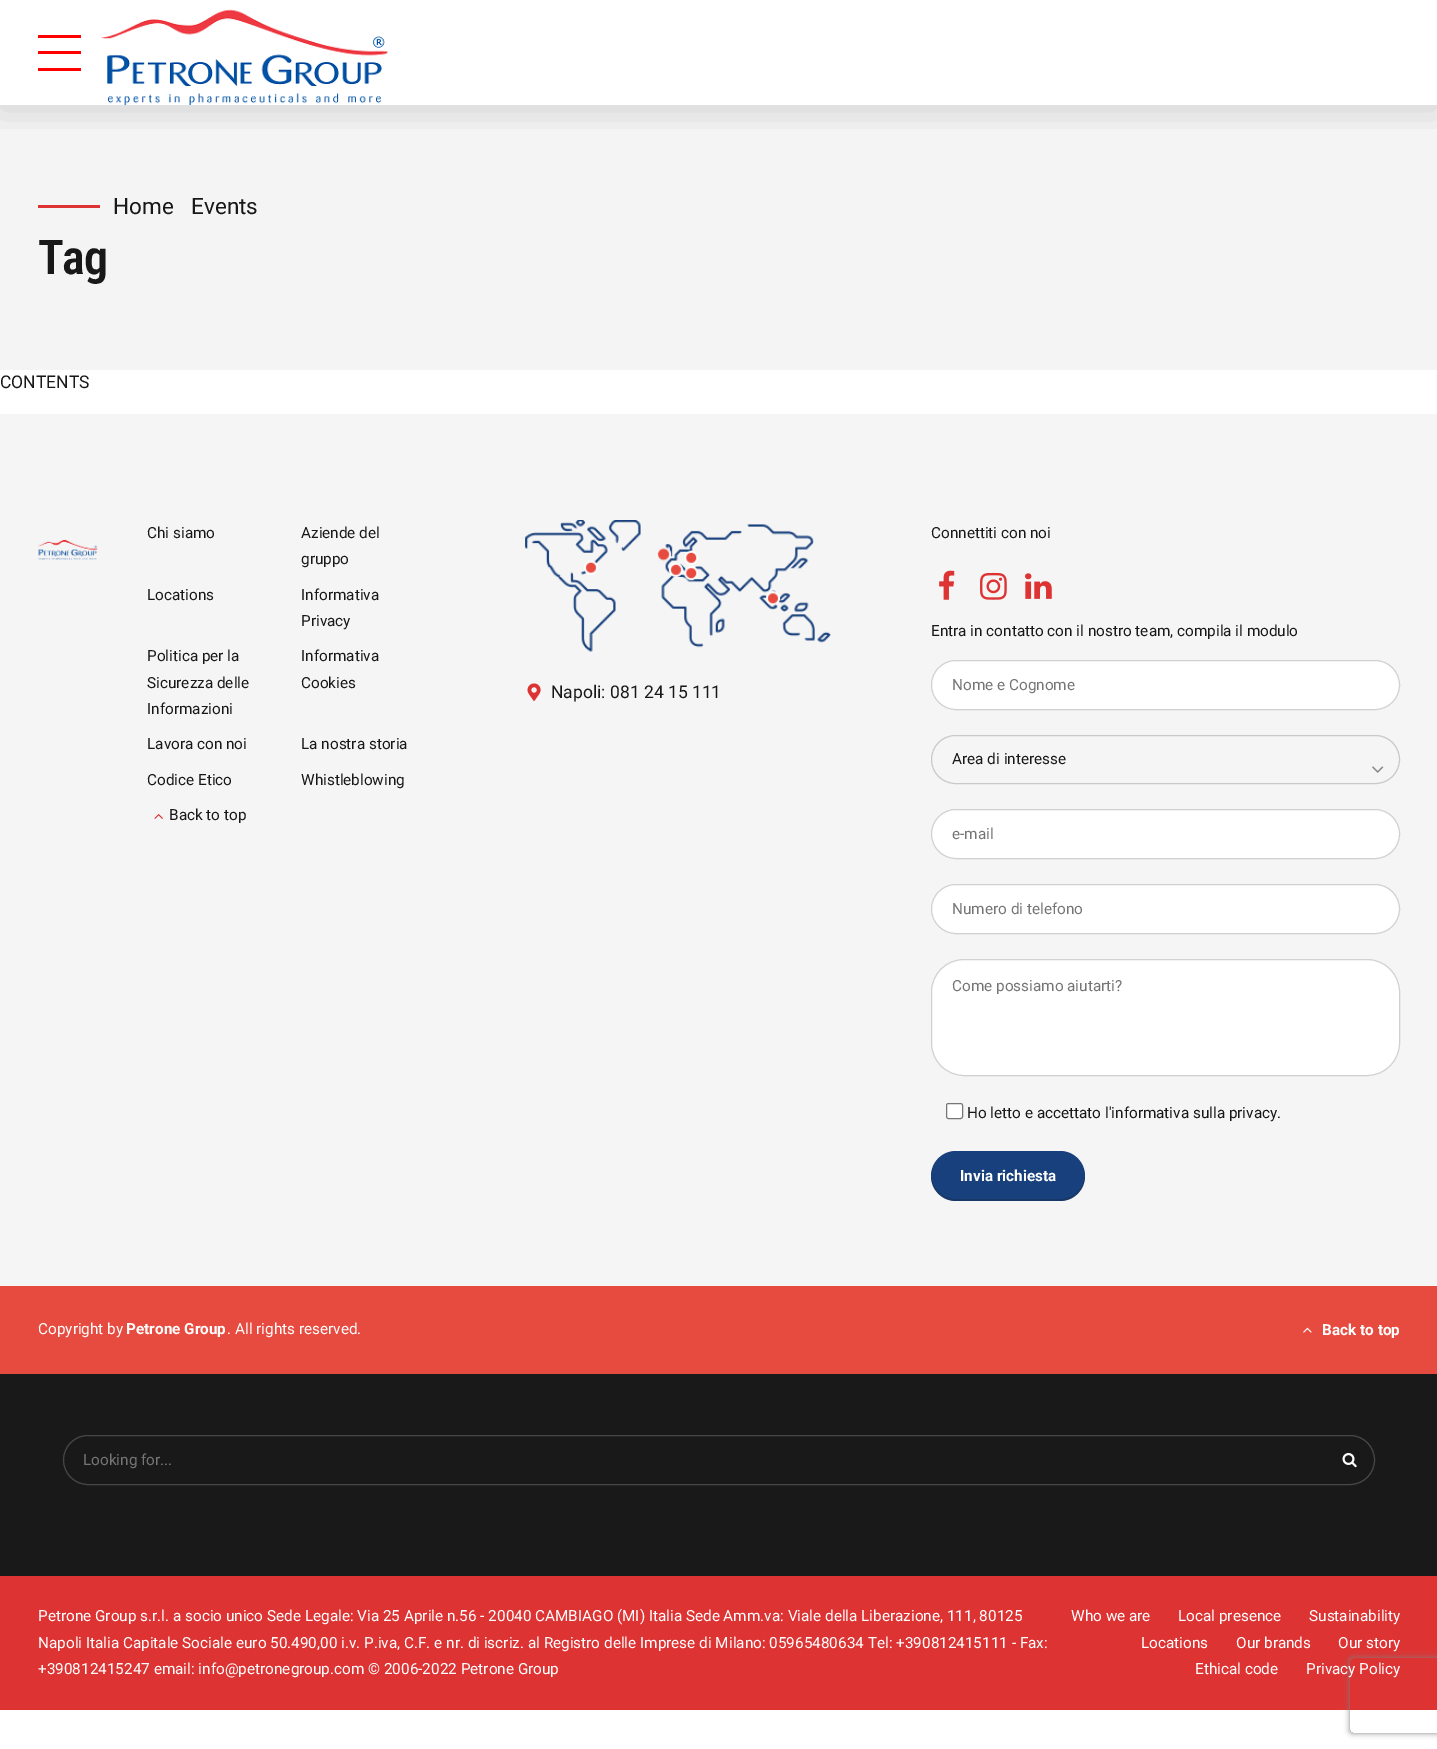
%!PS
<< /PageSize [1437 1749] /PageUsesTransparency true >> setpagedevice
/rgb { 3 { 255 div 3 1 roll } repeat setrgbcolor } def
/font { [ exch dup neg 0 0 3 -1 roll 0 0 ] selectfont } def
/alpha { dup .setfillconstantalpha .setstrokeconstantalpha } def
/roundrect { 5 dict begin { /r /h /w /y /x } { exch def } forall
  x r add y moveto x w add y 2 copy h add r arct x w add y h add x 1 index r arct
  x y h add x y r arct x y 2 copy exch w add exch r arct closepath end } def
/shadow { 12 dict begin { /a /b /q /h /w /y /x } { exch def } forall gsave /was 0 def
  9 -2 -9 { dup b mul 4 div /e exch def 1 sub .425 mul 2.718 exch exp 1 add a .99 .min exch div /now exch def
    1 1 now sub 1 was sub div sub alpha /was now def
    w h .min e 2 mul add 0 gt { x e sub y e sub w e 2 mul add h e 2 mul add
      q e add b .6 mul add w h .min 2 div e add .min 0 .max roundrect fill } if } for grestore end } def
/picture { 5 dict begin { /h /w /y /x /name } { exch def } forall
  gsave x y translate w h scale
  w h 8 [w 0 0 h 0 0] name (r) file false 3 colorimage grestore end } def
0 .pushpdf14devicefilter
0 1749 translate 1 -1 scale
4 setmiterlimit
255 255 255 rgb
0 0 1437 1749 rectfill
244 244 244 rgb
0 105 1437 265 rectfill
gsave
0 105 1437 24 rectclip
0 0 0 rgb
0 3 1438 105 0 19 0.15 shadow
grestore
[
  [38 35 43 3 255 0 0]
  [38 51 43 3 255 0 0]
  [38 68 43 3 255 0 0]
] { aload pop rgb rectfill } forall
(img/1.rgb) 101 9 287 96 picture
221 51 51 rgb
38 205 62 3 rectfill
245 245 245 rgb
0 414 1437 872 rectfill
(img/2.rgb) 38 539 60 21 picture
(img/3.rgb) 154 814 9 5 picture
(img/4.rgb) 525 520 306 132 picture
(img/5.rgb) 527 683 14 18 picture
(img/6.rgb) 939 570 16 30 picture
(img/7.rgb) 980 572 27 28 picture
(img/8.rgb) 1025 573 27 26 picture
255 255 255 rgb
931 660 469 50 25 roundrect fill
0.2 alpha
24 24 24 rgb
931.5 660.5 468 49 24.5 roundrect stroke
1 alpha
201 201 201 rgb
931.5 735.5 468 48 24 roundrect stroke
(img/9.rgb) 1372 766 12 7 picture
255 255 255 rgb
931 809 469 50 25 roundrect fill
0.2 alpha
24 24 24 rgb
931.5 809.5 468 49 24.5 roundrect stroke
1 alpha
255 255 255 rgb
931 884 469 50 25 roundrect fill
0.2 alpha
24 24 24 rgb
931.5 884.5 468 49 24.5 roundrect stroke
1 alpha
255 255 255 rgb
931 959 469 117 33 roundrect fill
0.2 alpha
24 24 24 rgb
931.5 959.5 468 116 32.5 roundrect stroke
1 alpha
255 255 255 rgb
946.5 1103.5 16 15 2 roundrect gsave fill grestore
118 118 118 rgb
stroke
24 64 124 rgb
931 1151 154 50 25 roundrect fill
0.2 alpha
24 24 24 rgb
931 1175 moveto 931 1176 lineto 931 1190 942 1201 956 1201 curveto 1060 1201 lineto 1074 1201 1085 1190 1085 1176 curveto 1085 1175 lineto 1084 1189 1074 1199 1060 1199 curveto 956 1199 lineto 942 1199 932 1189 931 1175 curveto closepath fill
1 alpha
231 74 62 rgb
0 1286 1437 88 rectfill
(img/10.rgb) 1303 1327 9 6 picture
25 25 25 rgb
0 1374 1437 202 rectfill
71 71 71 rgb
63.5 1435.5 1311 49 24.5 roundrect stroke
(img/11.rgb) 1342 1453 15 15 picture
221 51 51 rgb
0 1576 1437 134 rectfill
gsave
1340 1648 moveto 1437 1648 lineto 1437 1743 lineto 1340 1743 lineto closepath 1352.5 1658 moveto 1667.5 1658 lineto 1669 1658 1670 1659 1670 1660.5 curveto 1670 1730.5 lineto 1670 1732 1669 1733 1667.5 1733 curveto 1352.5 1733 lineto 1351 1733 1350 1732 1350 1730.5 curveto 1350 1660.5 lineto 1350 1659 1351 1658 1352.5 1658 curveto closepath eoclip newpath
128 128 128 rgb
1350 1658 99 75 2.5 3 1 shadow
grestore
/Roboto-Regular 22.5 font
24 24 24 rgb
113 214 moveto (Home) show
191 214 moveto (Events) show
/RobotoCondensed-SemiBold 48 font
38 274 moveto -1.5 0 (Tag) ashow
/Roboto-Regular 17.5 font
0 388 moveto (CONTENTS) show
/Roboto-Regular 15.3 font
[
  [(Chi siamo) 147 538]
  [(Aziende del) 301 538]
  [(gruppo) 301 564]
  [(Locations) 147 600]
  [(Informativa) 301 600]
  [(Privacy) 301 626]
  [(Politica per la) 147 661]
  [(Sicurezza delle) 147 688]
  [(Informazioni) 147 714]
  [(Informativa) 301 661]
  [(Cookies) 301 688]
  [(Lavora con noi) 147 749]
  [(La nostra storia) 301 749]
  [(Codice Etico) 147 785]
  [(Whistleblowing) 301 785]
  [(Back to top) 169 820]
] { aload pop moveto show } forall
/Roboto-Regular 17.5 font
551 698 moveto (Napoli: 081 24 15 111) show
/Roboto-Regular 15.3 font
931 538 moveto (Connettiti con noi) show
931 636 moveto (Entra in contatto con il nostro team, compila il modulo) show
117 117 117 rgb
952 690 moveto (Nome e Cognome) show
24 24 24 rgb
952 764 moveto (Area di interesse) show
117 117 117 rgb
[
  [(e-mail) 952 839]
  [(Numero di telefono) 952 914]
  [(Come possiamo aiutarti?) 952 991]
] { aload pop moveto show } forall
24 24 24 rgb
967 1118 moveto (Ho letto e accettato l'informativa sulla privacy.) show
/Roboto-Bold 15.3 font
255 255 255 rgb
960 1181 moveto (Invia richiesta) show
/Roboto-Regular 15.3 font
38 1334 moveto (Copyright by) show
/Roboto-Bold 15.3 font
126 1334 moveto (Petrone Group) show
/Roboto-Regular 15.3 font
227 1334 moveto (. All rights reserved.) show
/Roboto-Bold 15.3 font
1322 1335 moveto (Back to top) show
/Roboto-Regular 15.3 font
117 117 117 rgb
83 1465 moveto (Looking for...) show
255 255 255 rgb
[
  [(Petrone Group s.r.l. a socio unico Sede Legale: Via 25 Aprile n.56 - 20040 CAMBIAGO \(MI\) Italia Sede Amm.va: Viale della Liberazione, 111, 80125) 38 1621]
  [(Napoli Italia Capitale Sociale euro 50.490,00 i.v. P.iva, C.F. e nr. di iscriz. al Registro delle Imprese di Milano: 05965480634 Tel: +390812415111 - Fax:) 38 1648]
  [(+390812415247 email: info@petronegroup.com © 2006-2022 Petrone Group) 38 1674]
  [(Who we are) 1071 1621]
  [(Local presence) 1178 1621]
  [(Sustainability) 1309 1621]
  [(Locations) 1141 1648]
  [(Our brands) 1236 1648]
  [(Our story) 1338 1648]
  [(Ethical code) 1195 1674]
  [(Privacy Policy) 1306 1674]
] { aload pop moveto show } forall
.poppdf14devicefilter showpage
